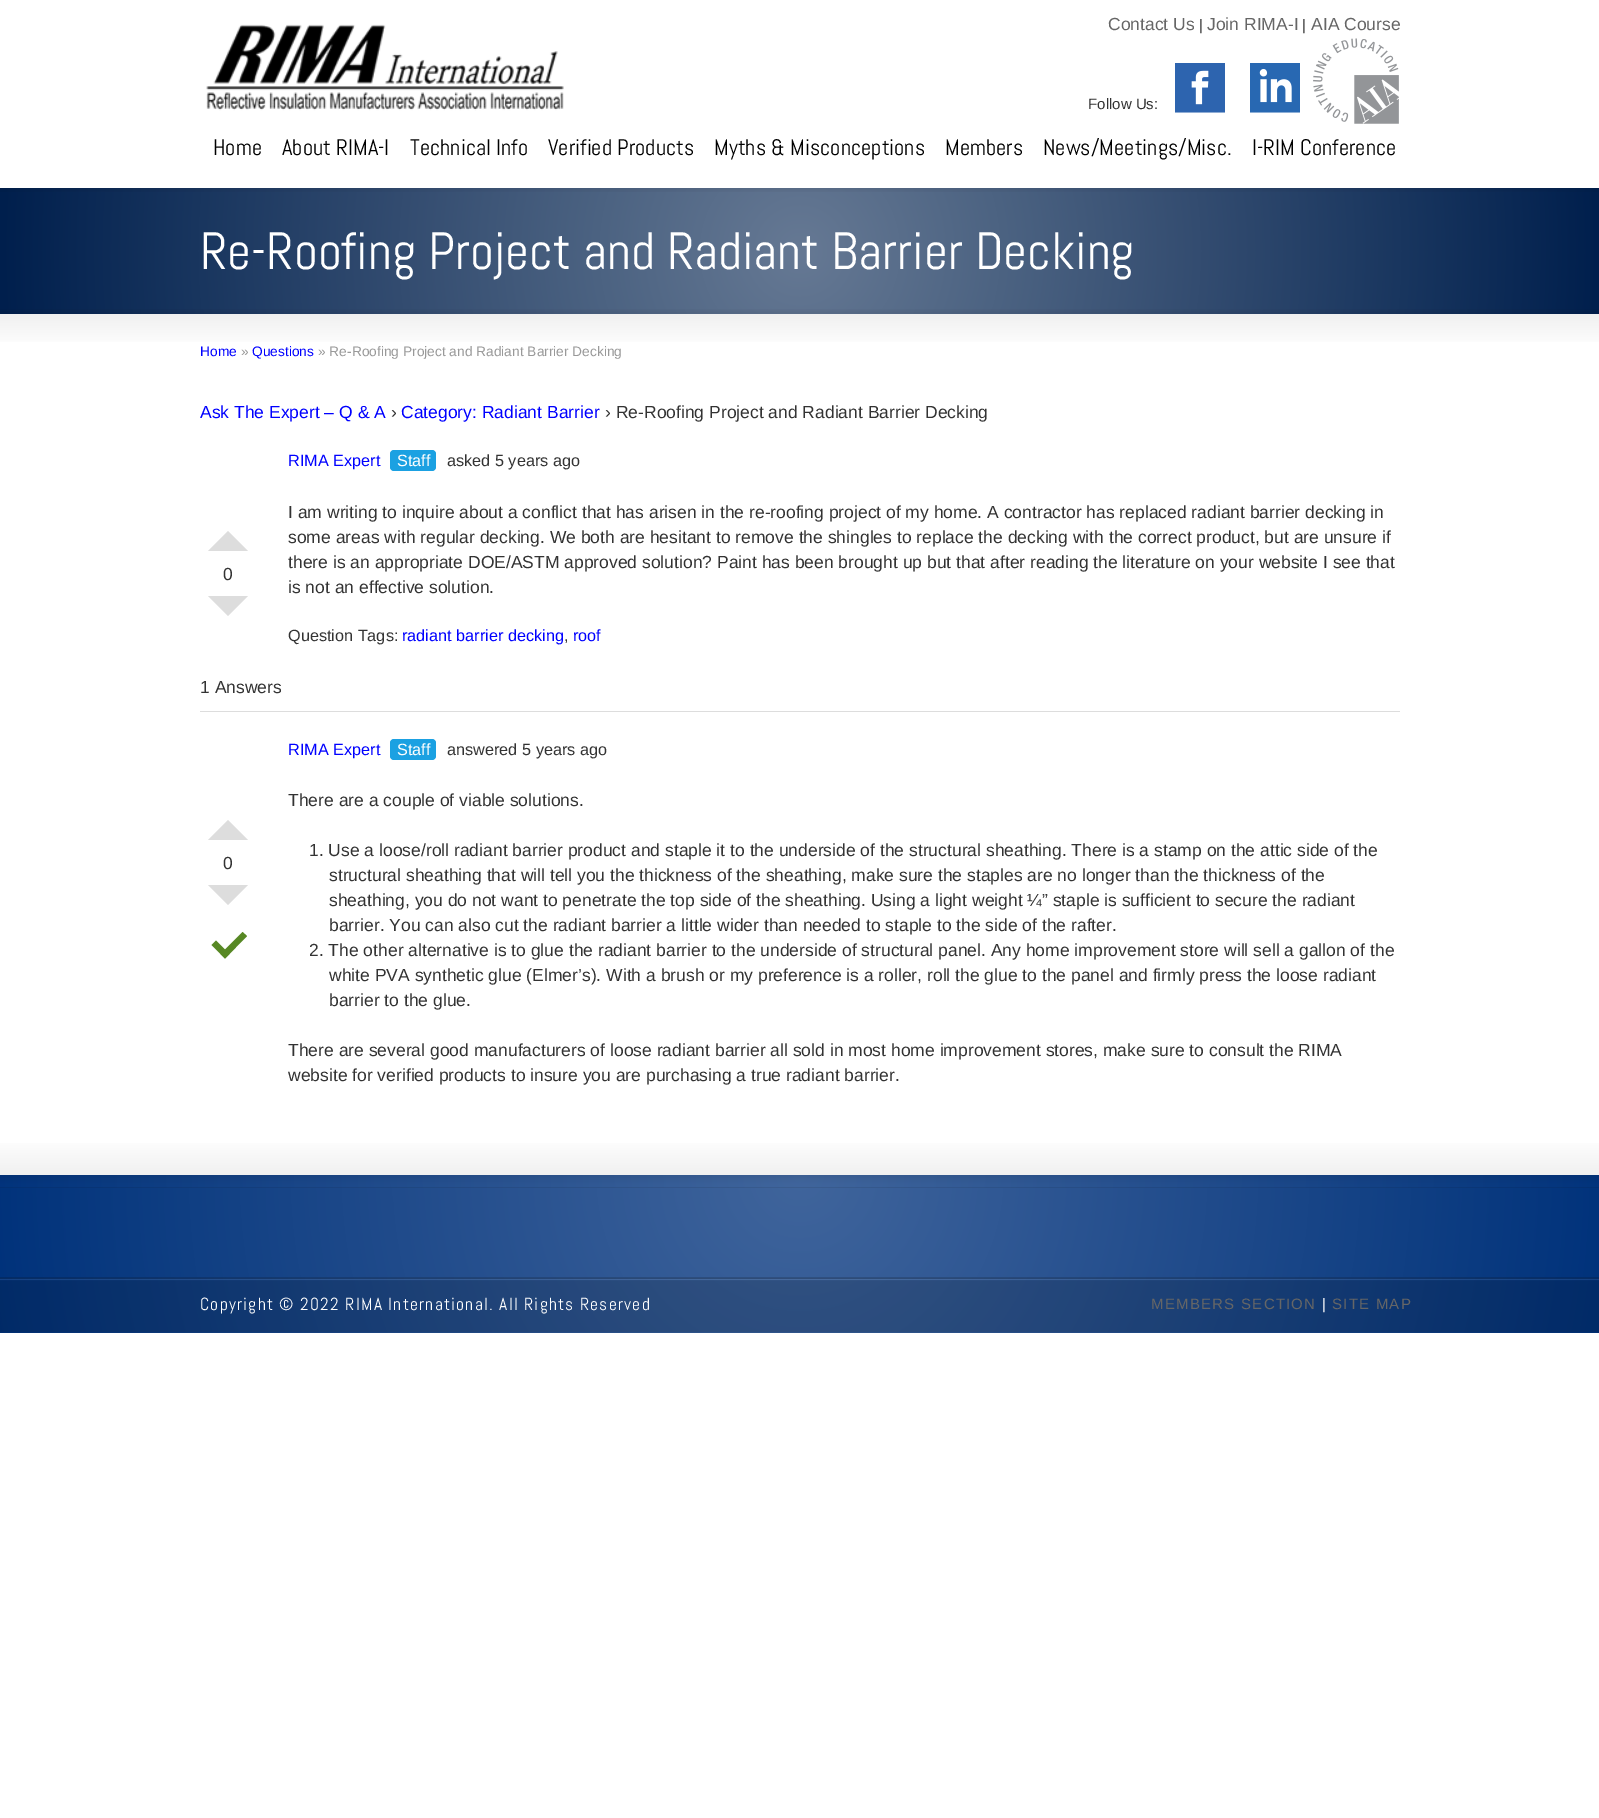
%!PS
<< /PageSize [1599 1818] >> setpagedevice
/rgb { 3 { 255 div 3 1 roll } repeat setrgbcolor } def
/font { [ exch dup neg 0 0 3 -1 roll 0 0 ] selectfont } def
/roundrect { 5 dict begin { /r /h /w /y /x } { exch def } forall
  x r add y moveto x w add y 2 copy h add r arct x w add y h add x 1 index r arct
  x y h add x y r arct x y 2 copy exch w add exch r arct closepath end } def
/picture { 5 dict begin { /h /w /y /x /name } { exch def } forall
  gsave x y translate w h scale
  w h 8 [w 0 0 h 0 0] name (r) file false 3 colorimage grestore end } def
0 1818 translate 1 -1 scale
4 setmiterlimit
255 255 255 rgb
0 0 1599 1818 rectfill
(img/1.rgb) 206 24 358 87 picture
(img/2.rgb) 1175 63 50 50 picture
(img/3.rgb) 1250 63 50 50 picture
(img/4.rgb) 1313 38 86 86 picture
gsave 0 188 moveto 1599 188 lineto 1599 314 lineto 0 314 lineto closepath clip newpath 800 251 translate 802 802 scale
<< /ShadingType 3 /ColorSpace /DeviceRGB /Coords [0 0 0 0 0 1] /Extend [true true] /Function << /FunctionType 2 /Domain [0 1] /C0 [0.4 0.475 0.58] /C1 [0 0.122 0.302] /N 1 >> >> shfill grestore
(img/5.rgb) 0 188 1599 4 picture
(img/6.rgb) 0 309 1599 5 picture
gsave 0 314 moveto 1599 314 lineto 1599 342 lineto 0 342 lineto closepath clip newpath
<< /ShadingType 2 /ColorSpace /DeviceRGB /Coords [800 314 800 348] /Extend [true true] /Function << /FunctionType 2 /Domain [0 1] /C0 [0.941 0.941 0.941] /C1 [1 1 1] /N 1 >> >> shfill grestore
27 161 226 rgb
390 450 46 21 4 roundrect fill
221 221 221 rgb
248 551 moveto 208 551 lineto 228 531 lineto closepath fill
208 596 moveto 248 596 lineto 228 616 lineto closepath fill
200 711 1200 1 rectfill
27 161 226 rgb
390 739 46 21 4 roundrect fill
221 221 221 rgb
248 840 moveto 208 840 lineto 228 820 lineto closepath fill
208 885 moveto 248 885 lineto 228 905 lineto closepath fill
87 136 36 rgb
242.5 932 moveto 247 936 lineto 225 958.5 lineto 220.5 954 lineto closepath fill
216 940.5 moveto 229.5 954 lineto 225 958.5 lineto 211.5 945 lineto closepath fill
gsave 0 1143 moveto 1599 1143 lineto 1599 1175 lineto 0 1175 lineto closepath clip newpath
<< /ShadingType 2 /ColorSpace /DeviceRGB /Coords [800 1137 800 1175] /Extend [true true] /Function << /FunctionType 2 /Domain [0 1] /C0 [1 1 1] /C1 [0.941 0.941 0.941] /N 1 >> >> shfill grestore
gsave 0 1175 moveto 1599 1175 lineto 1599 1333 lineto 0 1333 lineto closepath clip newpath 800 1175 translate 815 815 scale
<< /ShadingType 3 /ColorSpace /DeviceRGB /Coords [0 0 0 0 0 1] /Extend [true true] /Function << /FunctionType 2 /Domain [0 1] /C0 [0.251 0.396 0.612] /C1 [0 0.196 0.482] /N 1 >> >> shfill grestore
(img/7.rgb) 0 1175 1599 13 picture
(img/8.rgb) 0 1277 1599 56 picture
/LiberationSans-Regular 17.5 font
102 102 102 rgb
1108 30 moveto (Contact Us) show
/LiberationSans-Regular 15 font
51 51 51 rgb
1199 30 moveto (|) show
/LiberationSans-Regular 17.5 font
102 102 102 rgb
1207 30 moveto (Join RIMA-I) show
/LiberationSans-Regular 15 font
51 51 51 rgb
1302 30 moveto (|) show
/LiberationSans-Regular 17.5 font
102 102 102 rgb
1311 30 moveto (AIA Course) show
/LiberationSans-Regular 15 font
51 51 51 rgb
1088 109 moveto (Follow Us:) show
/Abel-Regular 22.5 font
0 0 0 rgb
[
  [(Home) 213 155]
  [(About RIMA-I) 282 155]
  [(Technical Info) 410 155]
  [(Verified Products) 548 155]
  [(Myths & Misconceptions) 714 155]
  [(Members) 945 155]
  [(News/Meetings/Misc.) 1043 155]
  [(I-RIM Conference) 1252 155]
] { aload pop moveto show } forall
/Abel-Regular 52.5 font
255 255 255 rgb
200 269 moveto (Re-Roofing Project and Radiant Barrier Decking) show
/LiberationSans-Regular 13.75 font
0 0 255 rgb
200 356 moveto (Home) show
153 153 153 rgb
241 356 moveto (») show
0 0 255 rgb
252 356 moveto (Questions) show
153 153 153 rgb
318 356 moveto (» Re-Roofing Project and Radiant Barrier Decking) show
/LiberationSans-Regular 17.5 font
0 0 255 rgb
200 418 moveto (Ask The Expert – Q & A) show
51 51 51 rgb
391 418 moveto (›) show
0 0 255 rgb
401 418 moveto (Category: Radiant Barrier) show
51 51 51 rgb
605 418 moveto (› Re-Roofing Project and Radiant Barrier Decking) show
/LiberationSans-Regular 16.25 font
0 0 255 rgb
288 466 moveto (RIMA Expert) show
255 255 255 rgb
397 466 moveto (Staff) show
51 51 51 rgb
447 466 moveto (asked 5 years ago) show
/LiberationSans-Regular 17.5 font
[
  [(0) 223 580]
  [(I am writing to inquire about a conflict that has arisen in the re-roofing project of my home. A contractor has replaced radiant barrier decking in) 288 518]
  [(some areas with regular decking. We both are hesitant to remove the shingles to replace the decking with the correct product, but are unsure if) 288 543]
  [(there is an appropriate DOE/ASTM approved solution? Paint has been brought up but that after reading the literature on your website I see that) 288 568]
  [(is not an effective solution.) 288 593]
] { aload pop moveto show } forall
/LiberationSans-Regular 16.25 font
288 641 moveto (Question Tags:) show
0 0 255 rgb
402 641 moveto (radiant barrier decking) show
51 51 51 rgb
564 641 moveto (,) show
0 0 255 rgb
573 641 moveto (roof) show
/LiberationSans-Regular 17.5 font
51 51 51 rgb
200 693 moveto (1 Answers) show
/LiberationSans-Regular 16.25 font
0 0 255 rgb
288 755 moveto (RIMA Expert) show
255 255 255 rgb
397 755 moveto (Staff) show
51 51 51 rgb
447 755 moveto (answered 5 years ago) show
/LiberationSans-Regular 17.5 font
[
  [(0) 223 869]
  [(There are a couple of viable solutions.) 288 806]
  [(1. Use a loose/roll radiant barrier product and staple it to the underside of the structural sheathing. There is a stamp on the attic side of the) 309 856]
  [(structural sheathing that will tell you the thickness of the sheathing, make sure the staples are no longer than the thickness of the) 329 881]
  [(sheathing, you do not want to penetrate the top side of the sheathing. Using a light weight ¼” staple is sufficient to secure the radiant) 329 906]
  [(barrier. You can also cut the radiant barrier a little wider than needed to staple to the side of the rafter.) 329 931]
  [(2. The other alternative is to glue the radiant barrier to the underside of structural panel. Any home improvement store will sell a gallon of the) 309 956]
  [(white PVA synthetic glue \(Elmer’s\). With a brush or my preference is a roller, roll the glue to the panel and firmly press the loose radiant) 329 981]
  [(barrier to the glue.) 329 1006]
  [(There are several good manufacturers of loose radiant barrier all sold in most home improvement stores, make sure to consult the RIMA) 288 1056]
  [(website for verified products to insure you are purchasing a true radiant barrier.) 288 1081]
] { aload pop moveto show } forall
/Abel-Regular 17.5 font
255 255 255 rgb
200 1310 moveto 1.25 0 (Copyright © 2022 RIMA International. All Rights Reserved) ashow
/LiberationSans-Regular 15 font
102 102 102 rgb
1151 1309 moveto 1.25 0 (MEMBERS SECTION) ashow
255 255 255 rgb
1322 1309 moveto 1.25 0 (|) ashow
102 102 102 rgb
1332 1309 moveto 1.25 0 (SITE MAP) ashow
showpage
